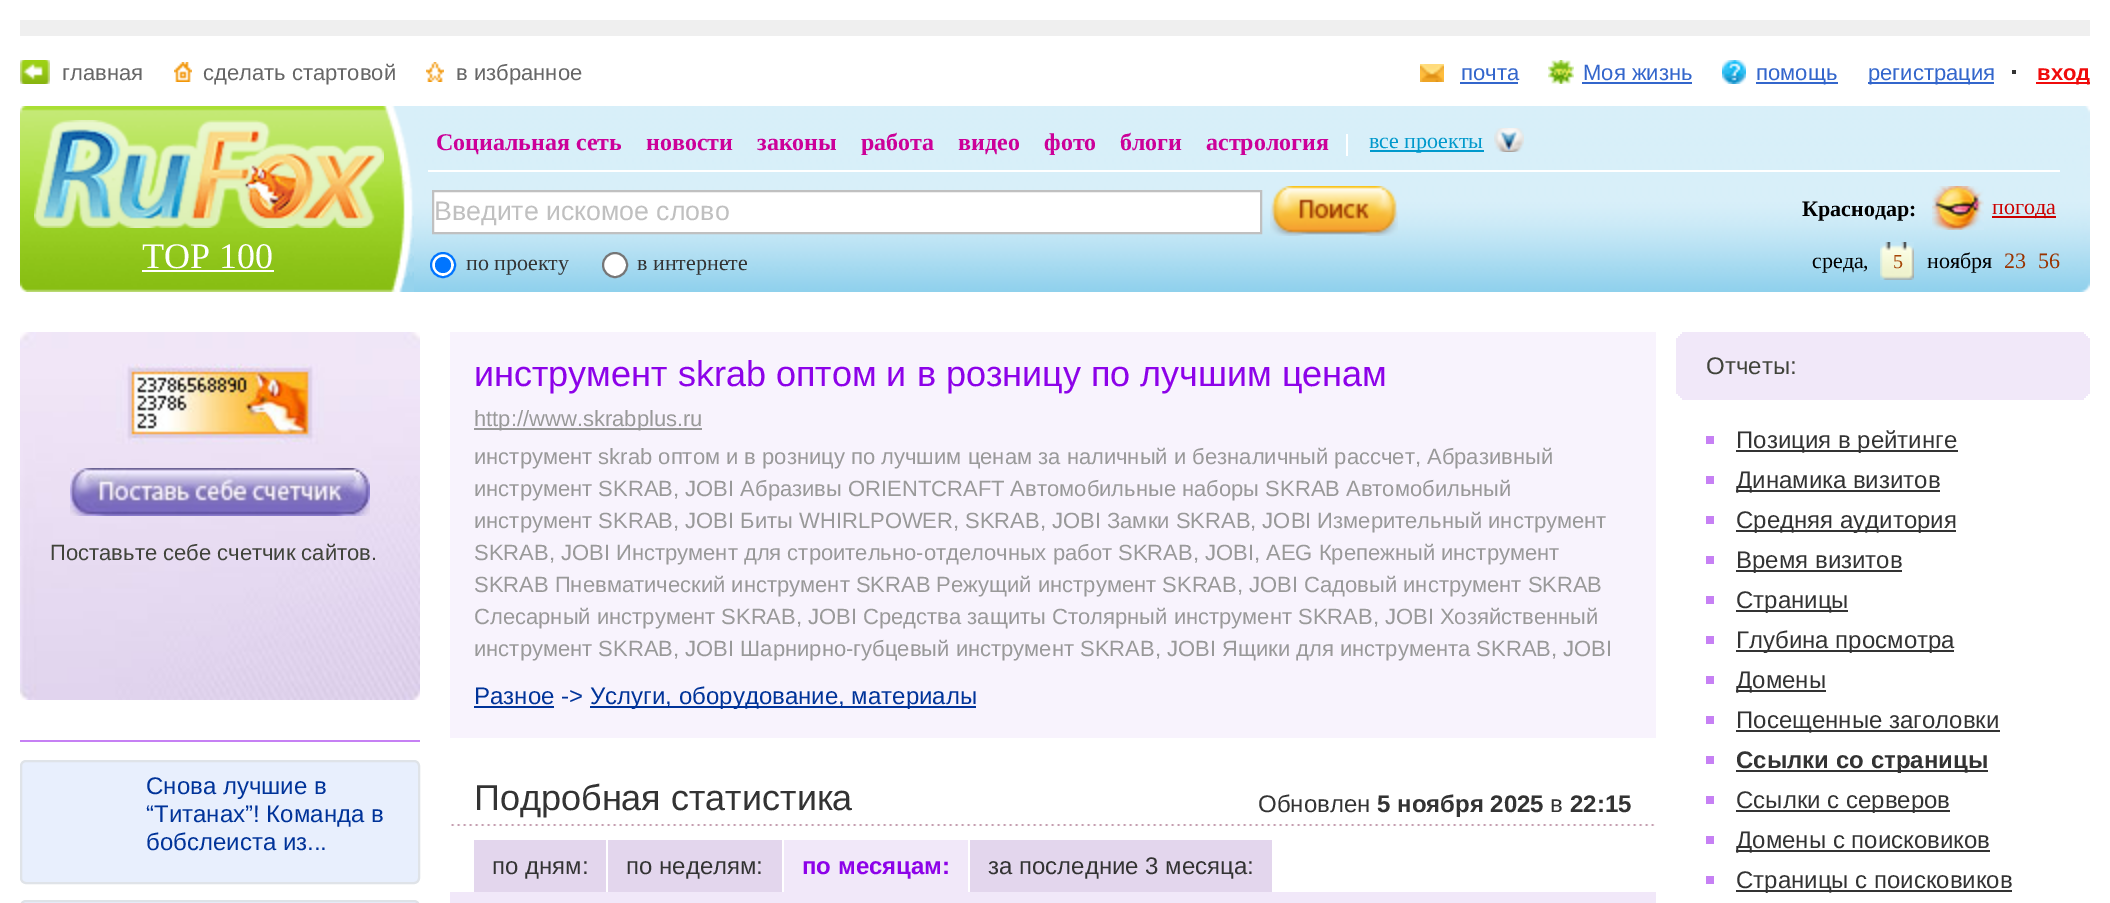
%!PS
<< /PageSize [2110 903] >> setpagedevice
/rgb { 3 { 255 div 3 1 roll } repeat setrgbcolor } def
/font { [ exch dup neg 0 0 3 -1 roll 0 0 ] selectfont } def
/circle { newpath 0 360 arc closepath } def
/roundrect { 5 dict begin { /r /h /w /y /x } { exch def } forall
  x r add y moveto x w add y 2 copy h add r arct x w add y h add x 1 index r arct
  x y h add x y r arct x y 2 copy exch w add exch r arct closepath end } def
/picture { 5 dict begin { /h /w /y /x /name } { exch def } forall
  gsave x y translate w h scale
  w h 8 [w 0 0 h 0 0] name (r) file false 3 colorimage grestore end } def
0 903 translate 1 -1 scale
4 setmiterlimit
255 255 255 rgb
0 0 2110 903 rectfill
239 239 239 rgb
20 20 2070 16 rectfill
(img/1.rgb) 20 60 30 24 picture
(img/2.rgb) 174 62 18 20 picture
(img/3.rgb) 426 62 18 20 picture
(img/4.rgb) 1420 64 24 18 picture
51 102 204 rgb
1460 82 58 2 rectfill
(img/5.rgb) 1548 60 26 24 picture
1582 82 110 2 rectfill
(img/6.rgb) 1722 60 24 24 picture
[
  [1756 82 82 2 51 102 204]
  [1868 82 126 2 51 102 204]
  [2012 70 4 4 51 51 51]
  [2036 82 54 2 240 11 11]
] { aload pop rgb rectfill } forall
(img/7.rgb) 414 106 1666 186 picture
(img/8.rgb) 20 106 394 186 picture
(img/9.rgb) 34 120 350 108 picture
[
  [142 270 132 2 255 255 255]
  [428 170 1632 2 255 255 255]
  [1346 134 2 22 255 255 255]
  [1370 150 114 2 0 153 204]
] { aload pop rgb rectfill } forall
(img/10.rgb) 1494 128 30 24 picture
255 255 255 rgb
433 191 moveto 1261 191 lineto 1261 233 lineto 433 233 lineto closepath gsave fill grestore
192 192 192 rgb
2 setlinewidth
stroke
(img/11.rgb) 1270 186 128 50 picture
255 255 255 rgb
443 265 12 circle gsave fill grestore
0 117 255 rgb
stroke
443 265 8 circle fill
255 255 255 rgb
615 265 12 circle gsave fill grestore
118 118 118 rgb
stroke
(img/12.rgb) 1932 186 52 44 picture
204 0 0 rgb
1992 216 64 2 rectfill
(img/13.rgb) 1880 242 34 38 picture
(img/14.rgb) 2080 106 10 186 picture
(img/15.rgb) 20 332 400 368 picture
(img/16.rgb) 70 468 300 48 picture
198 128 244 rgb
20 740 400 2 rectfill
232 239 253 rgb
21 761 398 122 5 roundrect gsave fill grestore
223 227 232 rgb
stroke
232 239 253 rgb
21 901 398 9 5 roundrect gsave fill grestore
223 227 232 rgb
stroke
[
  [450 332 1206 406 248 243 253]
  [474 428 228 2 153 153 153]
  [474 706 80 2 0 51 153]
  [590 706 386 2 0 51 153]
] { aload pop rgb rectfill } forall
(img/17.rgb) 451 824 1204 2 picture
[
  [474 840 132 52 227 214 237]
  [608 840 174 52 227 214 237]
  [784 840 184 52 241 232 249]
  [970 840 302 52 227 214 237]
  [450 892 1206 11 241 232 249]
  [1682 332 402 2 241 232 249]
  [1680 334 406 2 241 232 249]
  [1678 336 410 2 241 232 249]
  [1676 338 414 56 241 232 249]
  [1678 394 410 2 241 232 249]
  [1680 396 406 2 241 232 249]
  [1682 398 402 2 241 232 249]
  [1706 436 8 8 198 128 244]
  [1736 450 222 2 51 51 51]
  [1706 476 8 8 198 128 244]
  [1736 490 204 2 51 51 51]
  [1706 516 8 8 198 128 244]
  [1736 530 220 2 51 51 51]
  [1706 556 8 8 198 128 244]
  [1736 570 166 2 51 51 51]
  [1706 596 8 8 198 128 244]
  [1736 610 112 2 51 51 51]
  [1706 636 8 8 198 128 244]
  [1736 650 218 2 51 51 51]
  [1706 676 8 8 198 128 244]
  [1736 690 90 2 51 51 51]
  [1706 716 8 8 198 128 244]
  [1736 730 264 2 51 51 51]
  [1706 756 8 8 198 128 244]
  [1736 770 252 2 51 51 51]
  [1706 796 8 8 198 128 244]
  [1736 810 214 2 51 51 51]
  [1706 836 8 8 198 128 244]
  [1736 850 254 2 51 51 51]
  [1706 876 8 8 198 128 244]
  [1736 890 276 2 51 51 51]
] { aload pop rgb rectfill } forall
/LiberationSans-Regular 22 font
102 102 102 rgb
[
  [(главная) 62 80]
  [(сделать стартовой) 203 80]
  [(в избранное) 456 80]
] { aload pop moveto show } forall
51 102 204 rgb
[
  [(почта) 1461 80]
  [(Моя жизнь) 1583 80]
  [(помощь) 1756 80]
  [(регистрация) 1868 80]
] { aload pop moveto show } forall
/LiberationSans-Bold 22 font
240 11 11 rgb
2037 80 moveto (вход) show
/LiberationSerif-Regular 36 font
255 255 255 rgb
142 268 moveto (TOP 100) show
/LiberationSerif-Bold 24 font
204 0 153 rgb
[
  [(Социальная сеть) 436 150]
  [(новости) 646 150]
  [(законы) 757 150]
  [(работа) 861 150]
  [(видео) 958 150]
  [(фото) 1044 150]
  [(блоги) 1120 150]
  [(астрология) 1206 150]
] { aload pop moveto show } forall
/LiberationSerif-Regular 22 font
0 153 204 rgb
1369 148 moveto (все проекты) show
/LiberationSans-Regular 26.75 font
192 192 192 rgb
434 220 moveto (Введите искомое слово) show
/LiberationSerif-Regular 22 font
51 51 51 rgb
466 270 moveto (по проекту) show
637 270 moveto (в интернете) show
/LiberationSerif-Bold 22 font
0 0 0 rgb
1802 216 moveto (Краснодар:) show
/LiberationSerif-Regular 22 font
204 0 0 rgb
1992 214 moveto (погода) show
0 0 0 rgb
1812 268 moveto (среда,) show
/LiberationSerif-Regular 20 font
166 70 7 rgb
1893 268 moveto (5) show
/LiberationSerif-Regular 22 font
0 0 0 rgb
1927 268 moveto (ноября) show
153 51 0 rgb
2004 268 moveto (23) show
2038 268 moveto (56) show
/LiberationSans-Regular 22 font
64 67 58 rgb
50 560 moveto (Поставьте себе счетчик сайтов.) show
/LiberationSans-Regular 24 font
0 51 153 rgb
[
  [(Снова лучшие в) 146 794]
  [(“Титанах”! Команда в) 146 822]
  [(бобслеиста из...) 146 850]
] { aload pop moveto show } forall
/LiberationSans-Regular 36 font
141 2 233 rgb
474 386 moveto (инструмент skrab оптом и в розницу по лучшим ценам) show
/LiberationSans-Regular 22 font
153 153 153 rgb
[
  [(http://www.skrabplus.ru) 474 426]
  [(инструмент skrab оптом и в розницу по лучшим ценам за наличный и безналичный рассчет, Абразивный) 474 464]
  [(инструмент SKRAB, JOBI Абразивы ORIENTCRAFT Автомобильные наборы SKRAB Автомобильный) 474 496]
  [(инструмент SKRAB, JOBI Биты WHIRLPOWER, SKRAB, JOBI Замки SKRAB, JOBI Измерительный инструмент) 474 528]
  [(SKRAB, JOBI Инструмент для строительно-отделочных работ SKRAB, JOBI, AEG Крепежный инструмент) 474 560]
  [(SKRAB Пневматический инструмент SKRAB Режущий инструмент SKRAB, JOBI Садовый инструмент SKRAB) 474 592]
  [(Слесарный инструмент SKRAB, JOBI Средства защиты Столярный инструмент SKRAB, JOBI Хозяйственный) 474 624]
  [(инструмент SKRAB, JOBI Шарнирно-губцевый инструмент SKRAB, JOBI Ящики для инструмента SKRAB, JOBI) 474 656]
] { aload pop moveto show } forall
/LiberationSans-Regular 24 font
0 51 153 rgb
474 704 moveto (Разное ->) show
590 704 moveto (Услуги, оборудование, материалы) show
/LiberationSans-Regular 36 font
51 51 51 rgb
474 810 moveto (Подробная статистика) show
/LiberationSans-Regular 24 font
1258 812 moveto (Обновлен) show
/LiberationSans-Bold 24 font
1377 812 moveto (5 ноября 2025) show
/LiberationSans-Regular 24 font
1550 812 moveto (в) show
/LiberationSans-Bold 24 font
1570 812 moveto (22:15) show
/LiberationSans-Regular 24 font
492 874 moveto (по дням:) show
626 874 moveto (по неделям:) show
/LiberationSans-Bold 24 font
141 2 233 rgb
802 874 moveto (по месяцам:) show
/LiberationSans-Regular 24 font
51 51 51 rgb
988 874 moveto (за последние 3 месяца:) show
64 67 58 rgb
1706 374 moveto (Отчеты:) show
51 51 51 rgb
[
  [(Позиция в рейтинге) 1736 448]
  [(Динамика визитов) 1736 488]
  [(Средняя аудитория) 1736 528]
  [(Время визитов) 1736 568]
  [(Страницы) 1736 608]
  [(Глубина просмотра) 1736 648]
  [(Домены) 1736 688]
  [(Посещенные заголовки) 1736 728]
] { aload pop moveto show } forall
/LiberationSans-Bold 24 font
1736 768 moveto (Ссылки со страницы) show
/LiberationSans-Regular 24 font
[
  [(Ссылки с серверов) 1736 808]
  [(Домены с поисковиков) 1736 848]
  [(Страницы с поисковиков) 1736 888]
] { aload pop moveto show } forall
showpage
